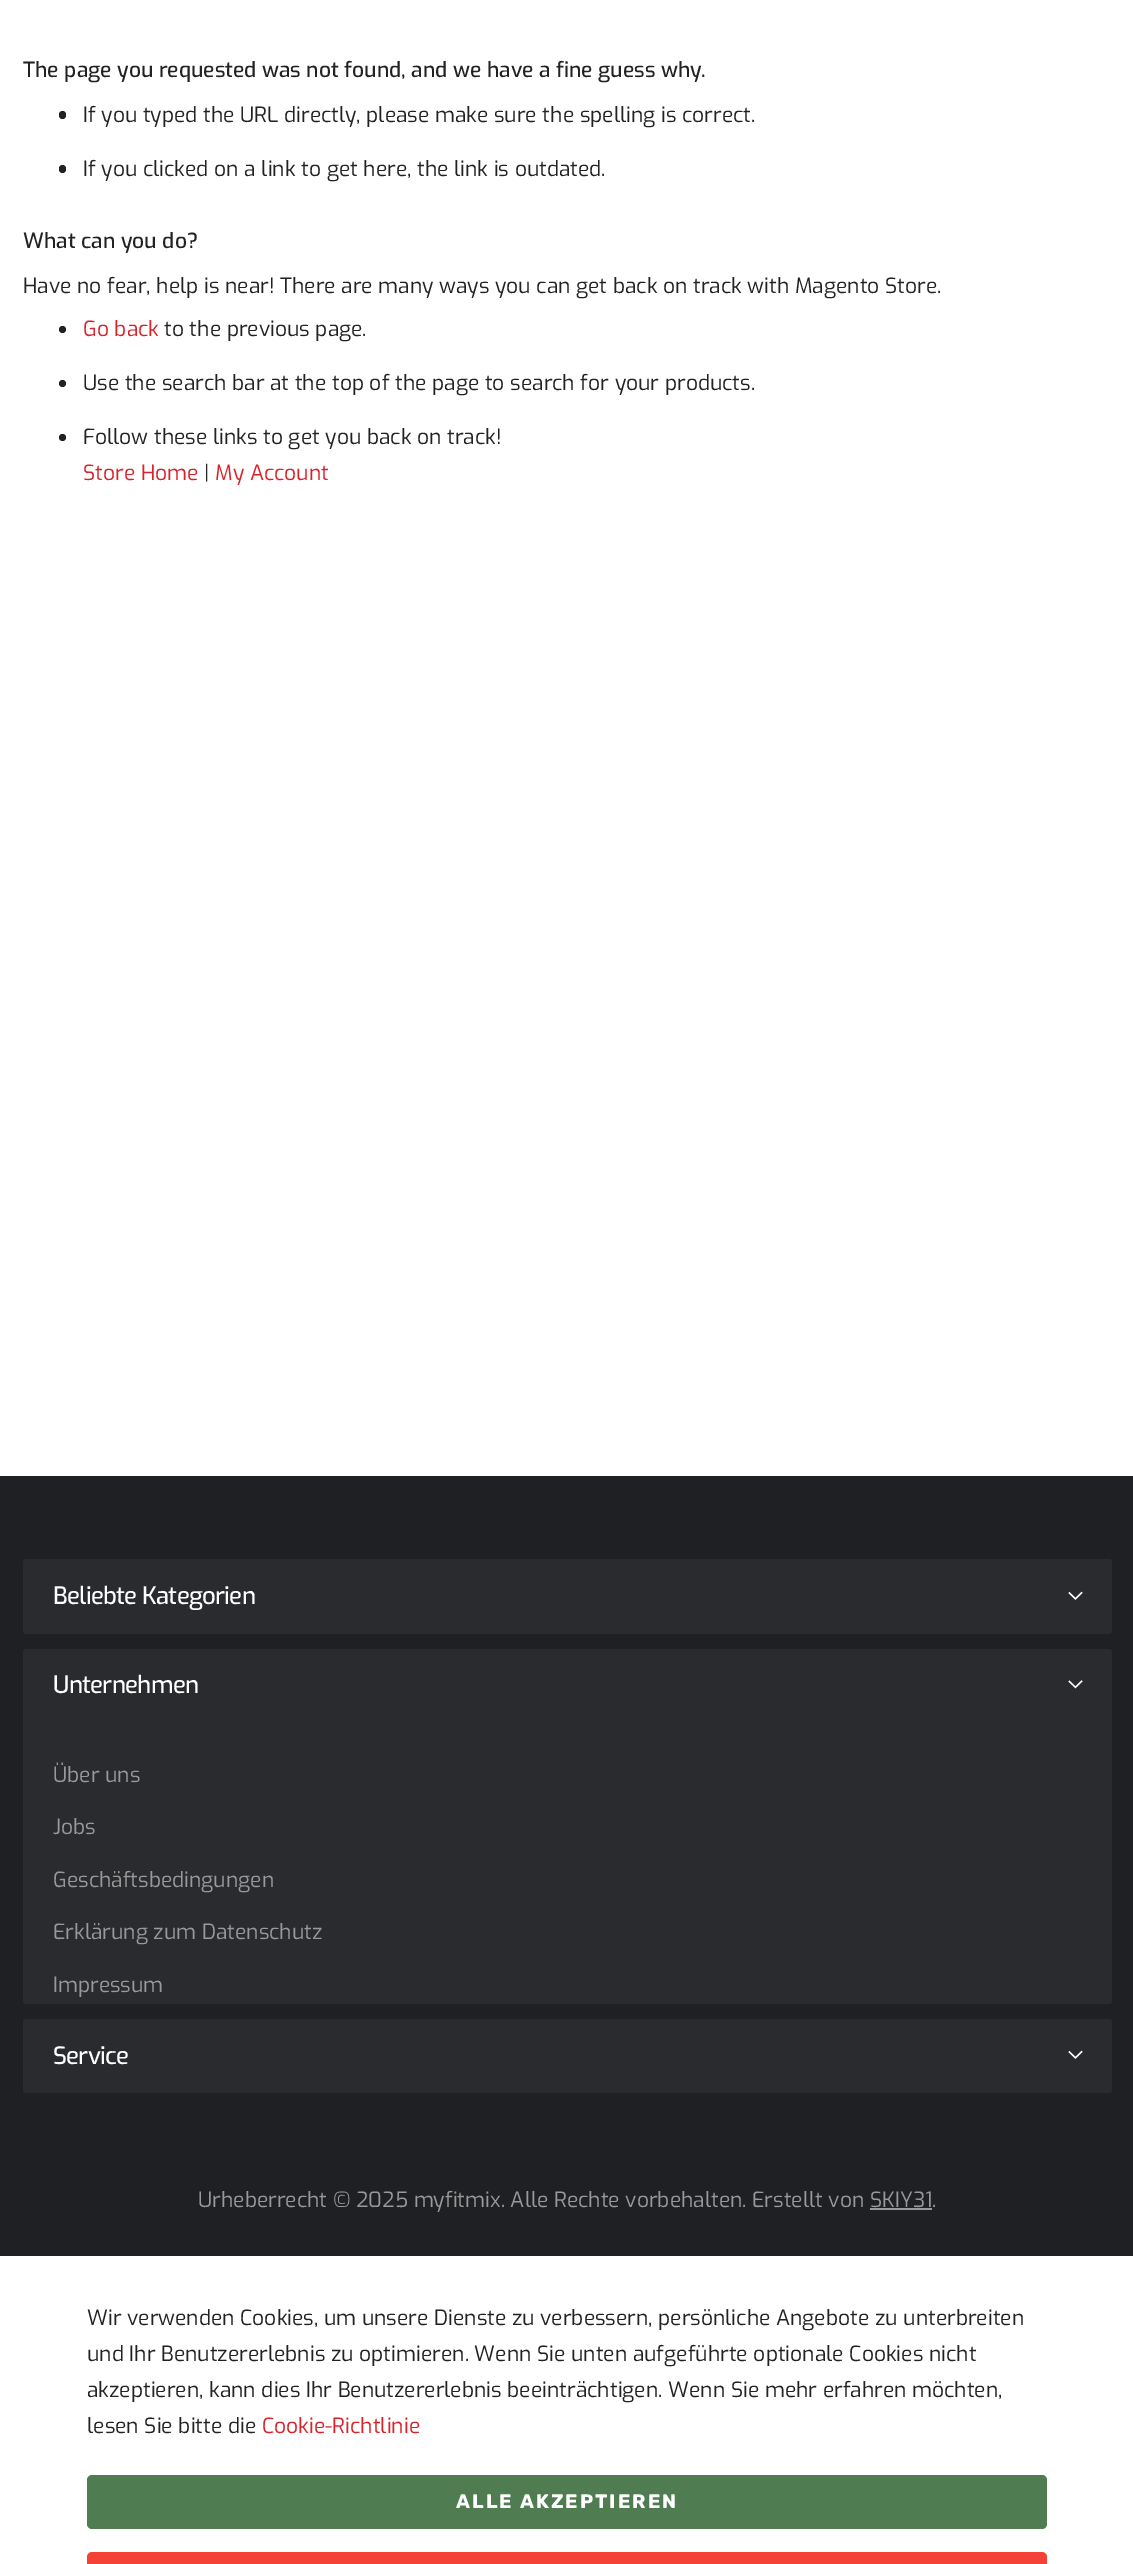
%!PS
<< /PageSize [1133 2564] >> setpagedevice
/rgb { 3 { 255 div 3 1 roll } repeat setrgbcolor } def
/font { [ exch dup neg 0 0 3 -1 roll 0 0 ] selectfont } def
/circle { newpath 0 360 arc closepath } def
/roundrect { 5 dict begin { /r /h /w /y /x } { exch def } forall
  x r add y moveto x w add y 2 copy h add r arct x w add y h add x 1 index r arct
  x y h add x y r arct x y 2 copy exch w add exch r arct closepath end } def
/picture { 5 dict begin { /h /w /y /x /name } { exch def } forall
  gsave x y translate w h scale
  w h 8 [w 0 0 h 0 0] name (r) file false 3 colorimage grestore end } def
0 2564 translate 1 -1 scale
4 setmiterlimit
255 255 255 rgb
0 0 1133 2564 rectfill
34 34 34 rgb
59 111 7 8 3.5 roundrect fill
59 165 7 8 3.5 roundrect fill
62.5 329.5 3.5 circle fill
62.5 383.5 3.5 circle fill
62.5 437.5 3.5 circle fill
31 32 36 rgb
0 1476 1133 780 rectfill
41 43 47 rgb
23 1559 1089 75 3 roundrect fill
(img/1.rgb) 1068 1591 15 9 picture
23 1649 1089 355 3 roundrect fill
(img/2.rgb) 1068 1680 15 9 picture
23 2019 1089 74 3 roundrect fill
(img/1.rgb) 1068 2050 15 9 picture
153 153 153 rgb
870 2208 62 2 rectfill
79 125 81 rgb
87 2475 960 54 5 roundrect fill
244 67 54 rgb
87 2552 960 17 5 roundrect fill
/Exo-Medium 21 font
34 34 34 rgb
23 77 moveto (The page you requested was not found, and we have a fine guess why.) show
/Exo-Regular 21 font
83 122 moveto (If you typed the URL directly, please make sure the spelling is correct.) show
83 176 moveto (If you clicked on a link to get here, the link is outdated.) show
/Exo-Medium 21 font
23 248 moveto (What can you do?) show
/Exo-Regular 21 font
23 293 moveto (Have no fear, help is near! There are many ways you can get back on track with Magento Store.) show
217 34 42 rgb
83 336 moveto (Go back) show
34 34 34 rgb
[
  [(to the previous page.) 164 336]
  [(Use the search bar at the top of the page to search for your products.) 83 390]
  [(Follow these links to get you back on track!) 83 444]
] { aload pop moveto show } forall
217 34 42 rgb
83 480 moveto (Store Home) show
34 34 34 rgb
204 480 moveto (|) show
217 34 42 rgb
215 480 moveto (My Account) show
/Exo-Medium 24 font
255 255 255 rgb
53 1604 moveto -0.75 0 (Beliebte Kategorien) ashow
53 1693 moveto -0.75 0 (Unternehmen) ashow
/Exo-Regular 21 font
153 153 153 rgb
[
  [(Über uns) 53 1782]
  [(Jobs) 53 1834]
  [(Geschäftsbedingungen) 53 1887]
  [(Erklärung zum Datenschutz) 53 1939]
  [(Impressum) 53 1992]
] { aload pop moveto show } forall
/Exo-Medium 24 font
255 255 255 rgb
53 2064 moveto -0.75 0 (Service) ashow
/Exo-Regular 21 font
153 153 153 rgb
198 2207 moveto (Urheberrecht © 2025 myfitmix. Alle Rechte vorbehalten. Erstellt von SKIY31.) show
34 34 34 rgb
[
  [(Wir verwenden Cookies, um unsere Dienste zu verbessern, persönliche Angebote zu unterbreiten) 87 2325]
  [(und Ihr Benutzererlebnis zu optimieren. Wenn Sie unten aufgeführte optionale Cookies nicht) 87 2361]
  [(akzeptieren, kann dies Ihr Benutzererlebnis beeinträchtigen. Wenn Sie mehr erfahren möchten,) 87 2397]
  [(lesen Sie bitte die) 87 2433]
] { aload pop moveto show } forall
217 34 42 rgb
262 2433 moveto (Cookie-Richtlinie) show
/Rubik-Bold 19.5 font
255 255 255 rgb
456 2508 moveto 2 0 (ALLE AKZEPTIEREN) ashow
showpage
